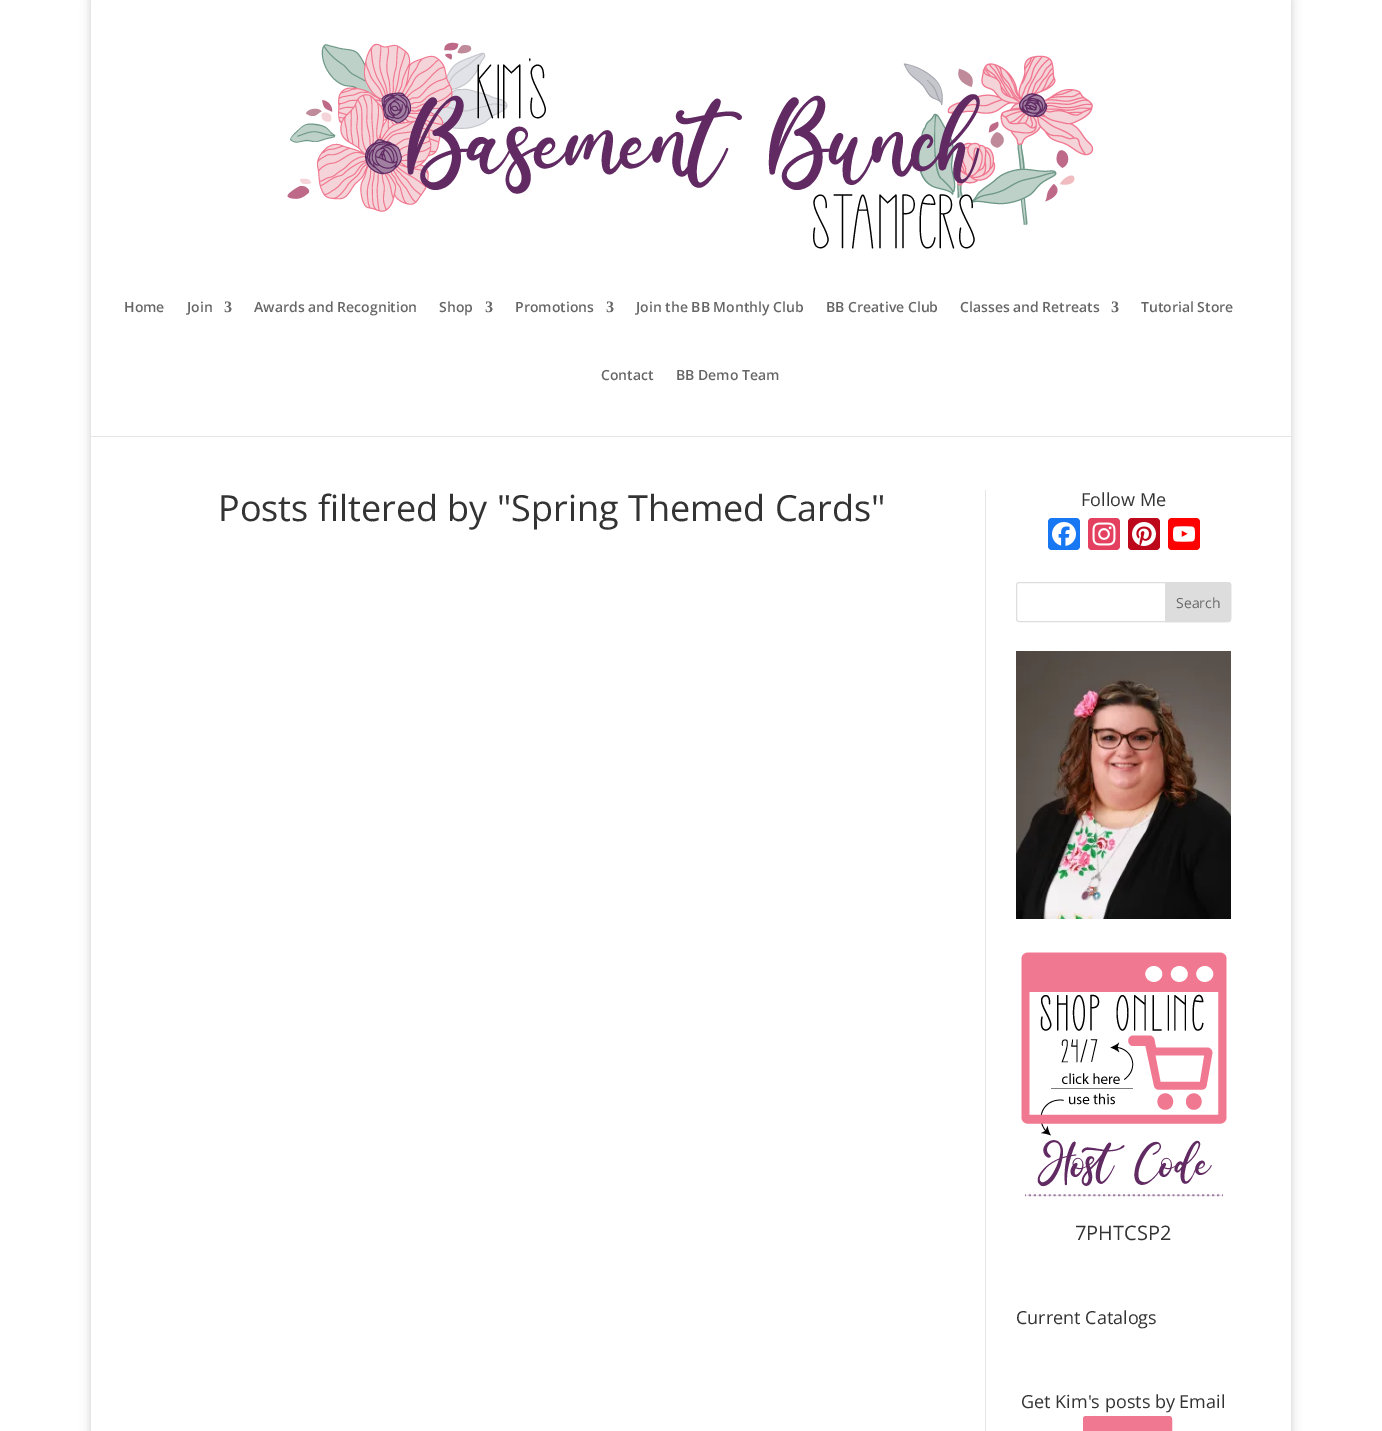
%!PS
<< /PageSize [1382 1431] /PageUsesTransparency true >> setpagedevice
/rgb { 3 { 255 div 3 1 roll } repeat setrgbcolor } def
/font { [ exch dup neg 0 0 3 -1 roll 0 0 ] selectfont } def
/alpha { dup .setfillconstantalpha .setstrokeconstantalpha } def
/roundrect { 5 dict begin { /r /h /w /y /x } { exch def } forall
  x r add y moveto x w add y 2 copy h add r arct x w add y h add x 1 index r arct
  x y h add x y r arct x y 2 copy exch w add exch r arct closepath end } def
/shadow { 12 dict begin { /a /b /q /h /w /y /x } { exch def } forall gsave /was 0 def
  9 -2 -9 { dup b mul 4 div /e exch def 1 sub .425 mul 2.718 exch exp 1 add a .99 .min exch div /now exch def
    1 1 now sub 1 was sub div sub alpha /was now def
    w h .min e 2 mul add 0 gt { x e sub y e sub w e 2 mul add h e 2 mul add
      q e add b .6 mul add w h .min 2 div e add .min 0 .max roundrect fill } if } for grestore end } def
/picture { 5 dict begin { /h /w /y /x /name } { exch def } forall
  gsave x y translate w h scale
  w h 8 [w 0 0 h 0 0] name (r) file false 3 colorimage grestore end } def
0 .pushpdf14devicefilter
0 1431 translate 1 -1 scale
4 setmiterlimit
255 255 255 rgb
0 0 1382 1431 rectfill
gsave
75 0 moveto 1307 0 lineto 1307 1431 lineto 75 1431 lineto closepath 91 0 moveto 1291 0 lineto 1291 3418 lineto 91 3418 lineto closepath eoclip newpath
0 0 0 rgb
91 0 1200 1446 0 5 0.2 shadow
grestore
230 230 230 rgb
91 436 1200 1 rectfill
(img/1.rgb) 287 42 807 207 picture
985 490 1 941 rectfill
24 119 242 rgb
1048 518 32 32 4 roundrect fill
(img/2.rgb) 1052 522 24 24 picture
228 64 95 rgb
1088 518 32 32 4 roundrect fill
(img/3.rgb) 1092 522 24 24 picture
189 8 28 rgb
1128 518 32 32 4 roundrect fill
(img/4.rgb) 1132 522 24 24 picture
255 0 0 rgb
1168 518 32 32 4 roundrect fill
(img/5.rgb) 1173 526 22 16 picture
221 221 221 rgb
1016.5 582.5 214 39 2.5 roundrect stroke
1165.5 582.5 moveto 1228 582.5 lineto 1229.5 582.5 1230.5 583.5 1230.5 585 curveto 1230.5 619 lineto 1230.5 620.5 1229.5 621.5 1228 621.5 curveto 1165.5 621.5 lineto closepath gsave fill grestore
stroke
(img/6.rgb) 1016 651 215 268 picture
(img/7.rgb) 1021 952 206 245 picture
241 120 145 rgb
1083.5 1416.5 88 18 2.5 roundrect gsave fill grestore
stroke
/OpenSans-SemiBold 14 font
102 102 102 rgb
124 312 moveto (Home) show
187 312 moveto (Join) show
/LiberationSerif-Bold 16 font
224 312 moveto (3) show
/OpenSans-SemiBold 14 font
254 312 moveto (Awards and Recognition) show
439 312 moveto (Shop) show
/LiberationSerif-Bold 16 font
485 312 moveto (3) show
/OpenSans-SemiBold 14 font
515 312 moveto (Promotions) show
/LiberationSerif-Bold 16 font
606 312 moveto (3) show
/OpenSans-SemiBold 14 font
[
  [(Join the BB Monthly Club) 636 312]
  [(BB Creative Club) 826 312]
  [(Classes and Retreats) 960 312]
] { aload pop moveto show } forall
/LiberationSerif-Bold 16 font
1111 312 moveto (3) show
/OpenSans-SemiBold 14 font
[
  [(Tutorial Store) 1141 312]
  [(Contact) 601 380]
  [(BB Demo Team) 676 380]
] { aload pop moveto show } forall
/OpenSans-Regular 36 font
51 51 51 rgb
218 521 moveto (Posts filtered by "Spring Themed Cards") show
/OpenSans-Regular 18 font
1081 506 moveto (Follow Me) show
/OpenSans-Regular 14 font
102 102 102 rgb
1176 608 moveto (Search) show
/OpenSans-Regular 20 font
51 51 51 rgb
1075 1240 moveto (7PHTCSP2) show
/OpenSans-Regular 18 font
1016 1324 moveto (Current Catalogs) show
1021 1408 moveto (Get Kim's posts by Email) show
.poppdf14devicefilter showpage
